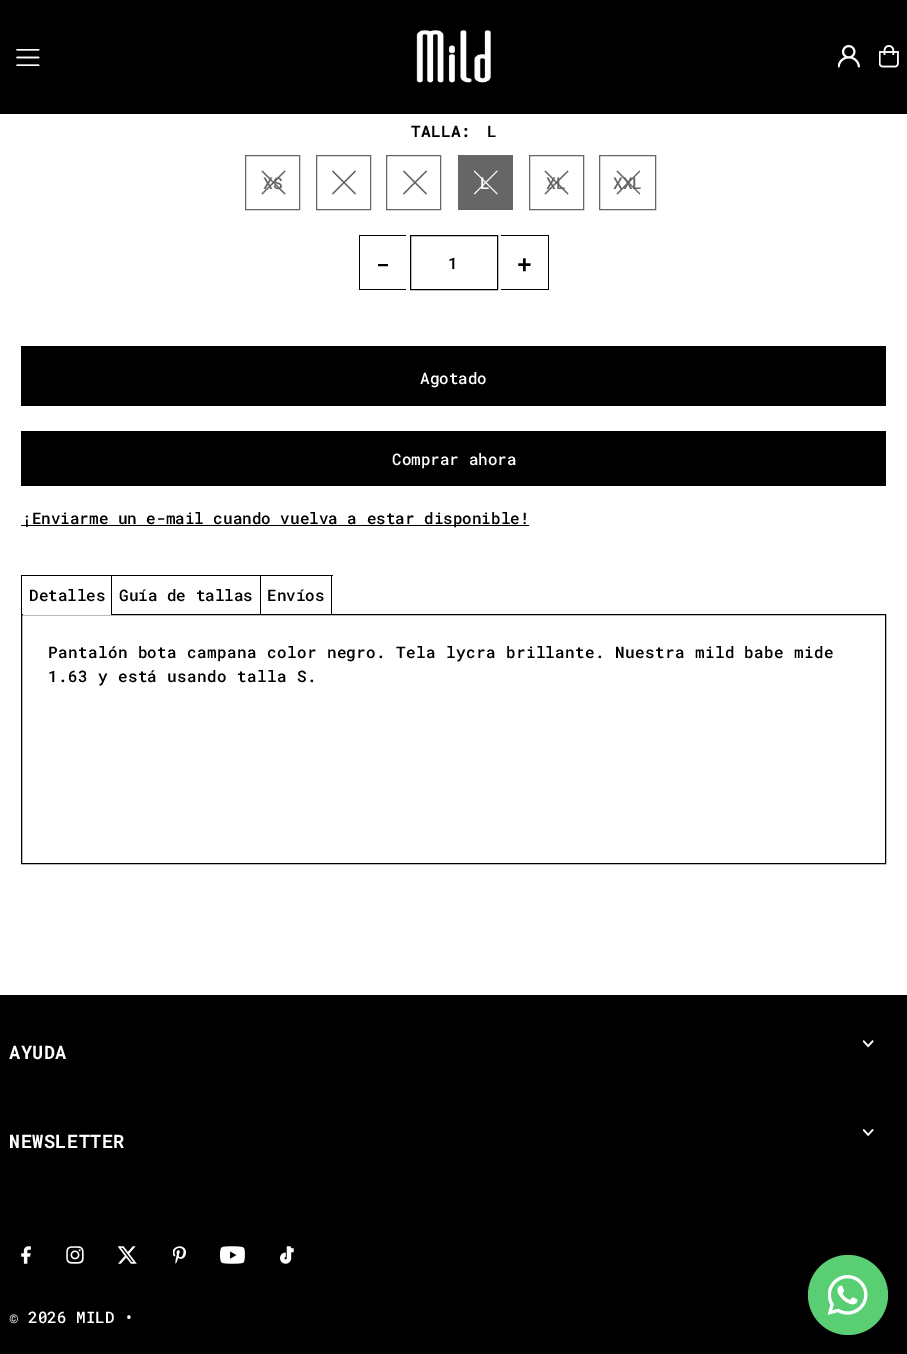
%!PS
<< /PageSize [907 1354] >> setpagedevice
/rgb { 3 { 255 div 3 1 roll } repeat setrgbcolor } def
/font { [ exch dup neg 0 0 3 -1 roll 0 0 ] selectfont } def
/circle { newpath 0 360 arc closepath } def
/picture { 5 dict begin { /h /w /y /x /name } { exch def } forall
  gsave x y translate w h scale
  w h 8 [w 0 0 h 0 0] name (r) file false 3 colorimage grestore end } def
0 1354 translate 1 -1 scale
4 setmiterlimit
255 255 255 rgb
0 0 907 1354 rectfill
0 0 0 rgb
0 0 907 114 rectfill
(img/1.rgb) 16 49 24 17 picture
(img/2.rgb) 416 30 75 53 picture
(img/3.rgb) 838 45 22 23 picture
(img/4.rgb) 879 45 20 23 picture
102 102 102 rgb
245.5 155.5 54 54 rectstroke
284.5 170.5 moveto 285.5 171.5 lineto 262.5 194.5 lineto 261.5 193.5 lineto closepath fill
285.5 193.5 moveto 284.5 194.5 lineto 261.5 171.5 lineto 262.5 170.5 lineto closepath fill
316.5 155.5 54 54 rectstroke
355 170.5 moveto 356 171.5 lineto 333 194.5 lineto 332 193.5 lineto closepath fill
356 193.5 moveto 355 194.5 lineto 332 171.5 lineto 333 170.5 lineto closepath fill
386.5 155.5 54 54 rectstroke
426 170.5 moveto 427 171.5 lineto 404 194.5 lineto 403 193.5 lineto closepath fill
427 193.5 moveto 426 194.5 lineto 403 171.5 lineto 404 170.5 lineto closepath fill
458 155 55 55 rectfill
255 255 255 rgb
497 170.5 moveto 497.5 171.5 lineto 474.5 194.5 lineto 474 193.5 lineto closepath fill
497.5 193.5 moveto 497 194.5 lineto 474 171.5 lineto 474.5 170.5 lineto closepath fill
102 102 102 rgb
529.5 155.5 54 54 rectstroke
567.5 170.5 moveto 568.5 171.5 lineto 545.5 194.5 lineto 544.5 193.5 lineto closepath fill
568.5 193.5 moveto 567.5 194.5 lineto 544.5 171.5 lineto 545.5 170.5 lineto closepath fill
599.5 155.5 56 54 rectstroke
639.5 170.5 moveto 640 171.5 lineto 617.5 194.5 lineto 616.5 193.5 lineto closepath fill
640 193.5 moveto 639.5 194.5 lineto 616.5 171.5 lineto 617.5 170.5 lineto closepath fill
[
  [359 235 47 1 0 0 0]
  [359 289 47 1 0 0 0]
  [359 235 1 55 0 0 0]
] { aload pop rgb rectfill } forall
410.5 235.5 87 54 rectstroke
[
  [501 235 48 1 0 0 0]
  [548 235 1 55 0 0 0]
  [501 289 48 1 0 0 0]
  [21 346 865 60 0 0 0]
  [21 431 865 55 0 0 0]
  [21 525 508 1 0 0 0]
  [21 575 312 1 0 0 0]
  [111 575 1 39 0 0 0]
  [21 575 1 39 0 0 0]
] { aload pop rgb rectfill } forall
21.5 614.5 864 249 rectstroke
[
  [23 614 88 1 255 255 255]
  [260 575 1 39 0 0 0]
  [331 575 1 39 0 0 0]
  [0 995 907 359 0 0 0]
] { aload pop rgb rectfill } forall
(img/5.rgb) 863 1040 11 8 picture
(img/6.rgb) 863 1129 11 7 picture
(img/7.rgb) 21 1246 10 18 picture
(img/8.rgb) 66 1246 18 18 picture
(img/9.rgb) 118 1246 19 18 picture
(img/10.rgb) 173 1246 13 18 picture
(img/11.rgb) 220 1246 25 18 picture
(img/12.rgb) 280 1246 14 18 picture
89 206 114 rgb
848 1295 40 circle fill
(img/13.rgb) 828 1275 40 40 picture
/RobotoMono-Bold 15.95 font
0 0 0 rgb
411 137 moveto 0.5 0 (TALLA:) ashow
/RobotoMono-Medium 15.95 font
487 137 moveto 0.5 0 (L) ashow
/RobotoMono-Medium 16 font
102 102 102 rgb
263 189 moveto (XS) show
255 255 255 rgb
480 189 moveto (L) show
102 102 102 rgb
546 189 moveto (XL) show
613 189 moveto (XXL) show
/RobotoMono-Medium 25 font
0 0 0 rgb
375 273 moveto (-) show
/RobotoMono-Medium 15.95 font
448 269 moveto (1) show
/RobotoMono-Medium 25 font
517 273 moveto (+) show
/RobotoMono-Medium 15.95 font
255 255 255 rgb
420 384 moveto (Agotado) show
392 465 moveto (Comprar ahora) show
0 0 0 rgb
[
  [(¡Enviarme un e-mail cuando vuelva a estar disponible!) 22 524]
  [(Detalles) 29 601]
  [(Guía de tallas) 119 601]
  [(Envíos) 267 601]
] { aload pop moveto show } forall
48 658 moveto 0.38 0 (Pantalón bota campana color negro. Tela lycra brillante. Nuestra mild babe mide) ashow
48 682 moveto 0.38 0 (1.63 y está usando talla S.) ashow
/RobotoMono-Bold 18.5 font
255 255 255 rgb
9 1059 moveto 0.5 0 (AYUDA) ashow
9 1148 moveto 0.5 0 (NEWSLETTER) ashow
/RobotoMono-Medium 15.95 font
9 1323 moveto (© 2026 MILD •) show
showpage
